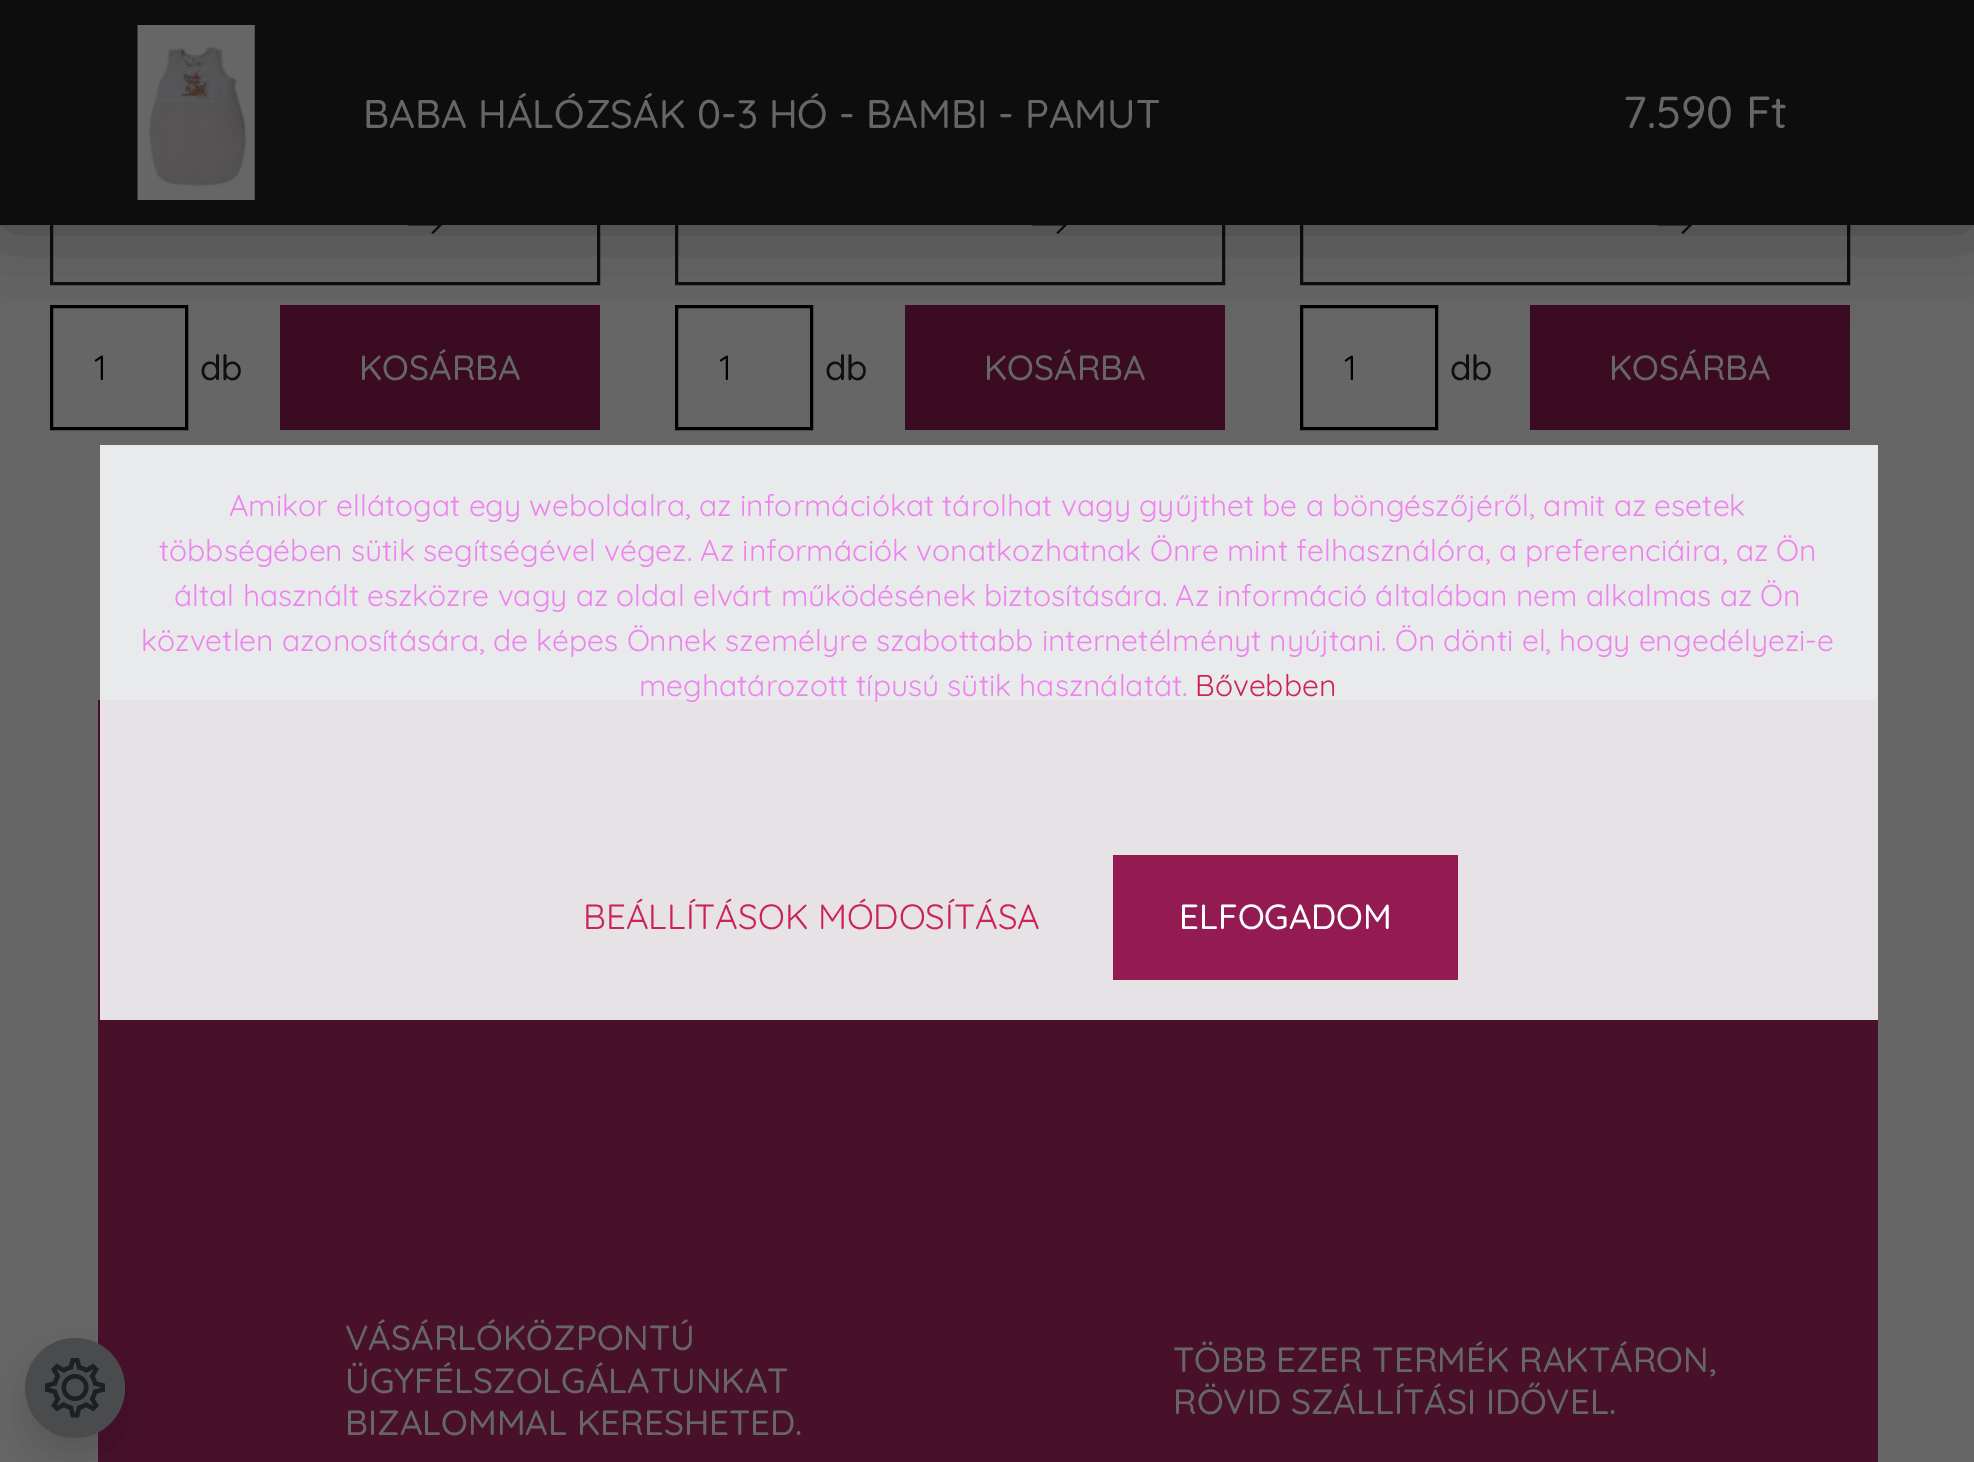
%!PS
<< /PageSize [1974 1462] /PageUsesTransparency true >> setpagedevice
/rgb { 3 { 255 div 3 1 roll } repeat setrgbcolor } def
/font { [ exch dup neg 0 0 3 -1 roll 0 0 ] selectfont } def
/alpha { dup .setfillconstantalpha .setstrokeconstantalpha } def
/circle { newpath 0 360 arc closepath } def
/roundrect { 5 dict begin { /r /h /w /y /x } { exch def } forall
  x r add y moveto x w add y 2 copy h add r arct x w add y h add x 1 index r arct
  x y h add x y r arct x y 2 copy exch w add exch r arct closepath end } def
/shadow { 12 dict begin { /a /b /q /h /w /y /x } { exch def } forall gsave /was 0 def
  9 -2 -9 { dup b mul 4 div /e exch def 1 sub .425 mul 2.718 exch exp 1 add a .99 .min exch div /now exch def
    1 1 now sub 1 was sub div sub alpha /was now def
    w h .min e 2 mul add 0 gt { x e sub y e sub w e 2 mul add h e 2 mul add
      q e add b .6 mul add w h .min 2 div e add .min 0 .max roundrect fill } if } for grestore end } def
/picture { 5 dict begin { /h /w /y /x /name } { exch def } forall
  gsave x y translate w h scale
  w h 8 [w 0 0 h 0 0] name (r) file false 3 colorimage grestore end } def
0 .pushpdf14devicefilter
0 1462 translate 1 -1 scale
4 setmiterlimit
102 102 102 rgb
0 0 1974 1462 rectfill
233 234 235 rgb
100 445 1778 255 rectfill
73 16 42 rgb
98 700 1780 762 rectfill
0 0 0 rgb
25 1358 100 100 50 20 0.15 shadow
74 75 76 rgb
75 1388 50 circle fill
(img/1.rgb) 45 1358 60 60 picture
13 13 13 rgb
3 setlinewidth
51.5 161.5 547 122 rectstroke
407.5 225.5 moveto 438.5 225.5 lineto 431.5 232.5 lineto 433 234 lineto 442.5 224.5 lineto 433 214.5 lineto 431.5 216 lineto 438.5 223.5 lineto 407.5 223.5 lineto closepath fill
0 0 0 rgb
51.5 306.5 135 122 rectstroke
59 11 33 rgb
280 305 320 125 rectfill
13 13 13 rgb
676.5 161.5 547 122 rectstroke
1032.5 225.5 moveto 1063.5 225.5 lineto 1056.5 232.5 lineto 1058 234 lineto 1067.5 224.5 lineto 1058 214.5 lineto 1056.5 216 lineto 1063.5 223.5 lineto 1032.5 223.5 lineto closepath fill
0 0 0 rgb
676.5 306.5 135 122 rectstroke
59 11 33 rgb
905 305 320 125 rectfill
13 13 13 rgb
1301.5 161.5 547 122 rectstroke
1657.5 225.5 moveto 1688.5 225.5 lineto 1681.5 232.5 lineto 1683 234 lineto 1692.5 224.5 lineto 1683 214.5 lineto 1681.5 216 lineto 1688.5 223.5 lineto 1657.5 223.5 lineto closepath fill
0 0 0 rgb
1301.5 306.5 135 122 rectstroke
59 11 33 rgb
1530 305 320 125 rectfill
0 0 0 rgb
0 0 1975 225 0 42.5 0.35 shadow
13 13 13 rgb
0 0 1974 225 rectfill
(img/2.rgb) 137 25 118 175 picture
231 226 229 rgb
100 700 1778 320 rectfill
147 27 82 rgb
1113 855 345 125 rectfill
/Quicksand-Medium 40 font
102 102 102 rgb
363 128 moveto (BABA HÁLÓZSÁK 0-3 HÓ - BAMBI - PAMUT) show
/Quicksand-Medium 45 font
1623 128 moveto (7.590 Ft) show
/Quicksand-Regular 35 font
0 0 0 rgb
94 380 moveto (1) show
/Quicksand-Medium 35 font
13 15 16 rgb
200 380 moveto (db) show
102 102 102 rgb
359 380 moveto (KOSÁRBA) show
/Quicksand-Regular 35 font
0 0 0 rgb
719 380 moveto (1) show
/Quicksand-Medium 35 font
13 15 16 rgb
825 380 moveto (db) show
102 102 102 rgb
984 380 moveto (KOSÁRBA) show
/Quicksand-Regular 35 font
0 0 0 rgb
1344 380 moveto (1) show
/Quicksand-Medium 35 font
13 15 16 rgb
1450 380 moveto (db) show
102 102 102 rgb
[
  [(KOSÁRBA) 1609 380]
  [(VÁSÁRLÓKÖZPONTÚ) 345 1350]
  [(ÜGYFÉLSZOLGÁLATUNKAT) 345 1393]
  [(BIZALOMMAL KERESHETED.) 345 1435]
  [(TÖBB EZER TERMÉK RAKTÁRON,) 1173 1372]
  [(RÖVID SZÁLLÍTÁSI IDŐVEL.) 1173 1414]
] { aload pop moveto show } forall
/Quicksand-Regular 30 font
238 130 238 rgb
[
  [(Amikor ellátogat egy weboldalra, az információkat tárolhat vagy gyűjthet be a böngészőjéről, amit az esetek) 229 516]
  [(többségében sütik segítségével végez. Az információk vonatkozhatnak Önre mint felhasználóra, a preferenciáira, az Ön) 159 561]
  [(által használt eszközre vagy az oldal elvárt működésének biztosítására. Az információ általában nem alkalmas az Ön) 174 606]
  [(közvetlen azonosítására, de képes Önnek személyre szabottabb internetélményt nyújtani. Ön dönti el, hogy engedélyezi-e) 141 651]
  [(meghatározott típusú sütik használatát.) 639 696]
] { aload pop moveto show } forall
204 34 85 rgb
1195 696 moveto (Bővebben) show
/Quicksand-Regular 35 font
583 929 moveto (BEÁLLÍTÁSOK MÓDOSÍTÁSA) show
/Quicksand-Medium 35 font
255 255 255 rgb
1179 929 moveto (ELFOGADOM) show
.poppdf14devicefilter showpage
